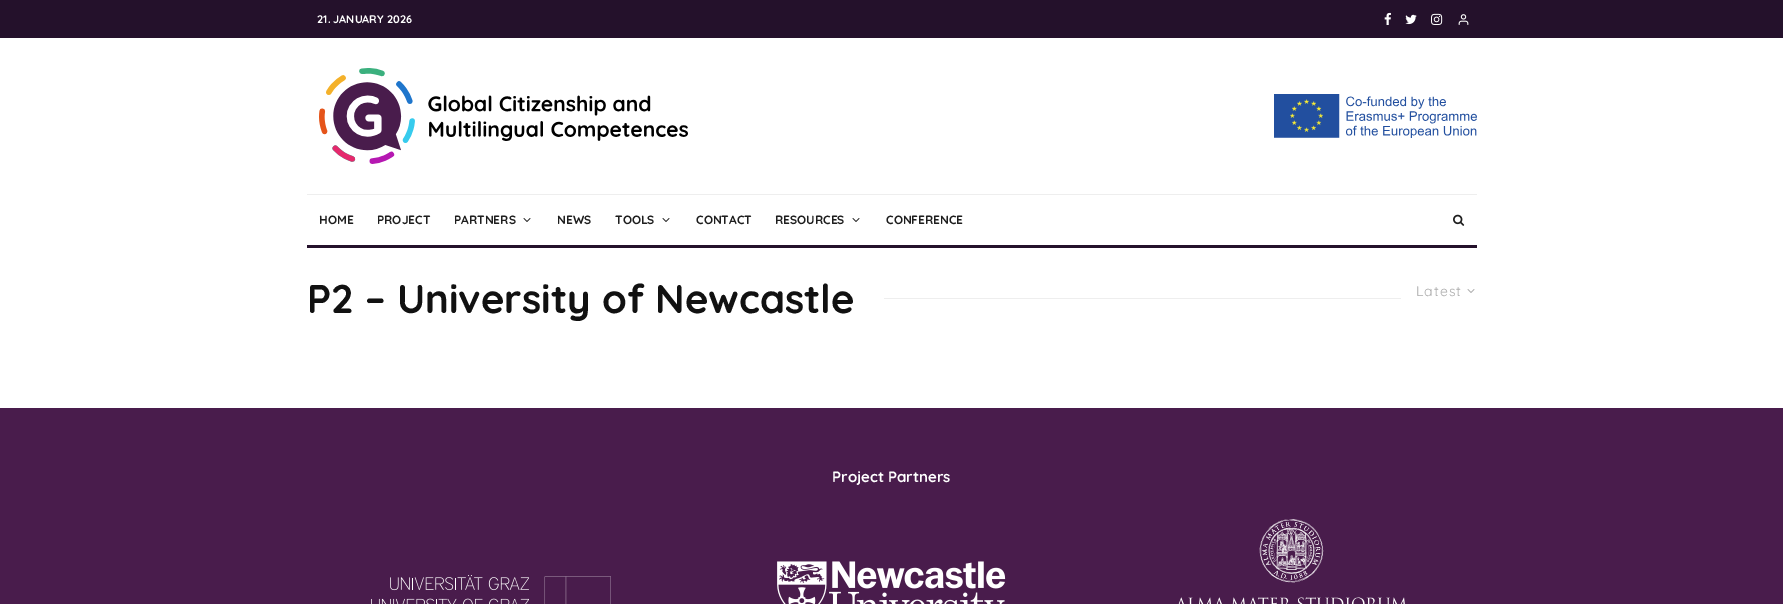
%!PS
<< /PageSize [1783 604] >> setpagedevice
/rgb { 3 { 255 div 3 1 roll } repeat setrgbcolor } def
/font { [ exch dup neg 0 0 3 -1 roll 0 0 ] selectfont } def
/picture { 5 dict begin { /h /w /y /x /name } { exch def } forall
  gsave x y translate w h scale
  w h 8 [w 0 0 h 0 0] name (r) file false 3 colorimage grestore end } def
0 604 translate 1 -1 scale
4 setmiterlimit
255 255 255 rgb
0 0 1783 604 rectfill
36 17 43 rgb
0 0 1783 38 rectfill
(img/1.rgb) 1384 12 7 13 picture
(img/2.rgb) 1405 14 12 11 picture
(img/3.rgb) 1431 13 12 12 picture
(img/4.rgb) 1458 14 11 11 picture
(img/5.rgb) 319 68 369 96 picture
(img/6.rgb) 1274 94 203 44 picture
238 238 238 rgb
307 194 1170 1 rectfill
36 17 43 rgb
307 245 1170 3 rectfill
(img/7.rgb) 523 218 8 4 picture
(img/7.rgb) 662 218 8 4 picture
(img/7.rgb) 852 218 8 4 picture
(img/8.rgb) 1453 214 12 12 picture
238 238 238 rgb
884 298 517 1 rectfill
(img/9.rgb) 1467 289 8 4 picture
73 28 76 rgb
0 408 1783 196 rectfill
(img/10.rgb) 371 575 240 29 picture
(img/11.rgb) 777 561 229 43 picture
(img/12.rgb) 1178 519 227 85 picture
/Quicksand-Light 11 font
255 255 255 rgb
317 23 moveto (21. JANUARY 2026) show
/Quicksand-Light 12 font
30 30 30 rgb
[
  [(HOME) 319 224]
  [(PROJECT) 377 224]
  [(PARTNERS) 454 224]
  [(NEWS) 557 224]
  [(TOOLS) 615 224]
  [(CONTACT) 696 224]
  [(RESOURCES) 775 224]
  [(CONFERENCE) 886 224]
] { aload pop moveto show } forall
/Quicksand-Light 40 font
17 17 17 rgb
307 313 moveto (P2 – University of Newcastle) show
/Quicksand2-Light 14 font
170 170 170 rgb
1416 296 moveto 1 0 (Latest) ashow
/Quicksand-Light 15 font
255 255 255 rgb
832 482 moveto (Project Partners) show
showpage
